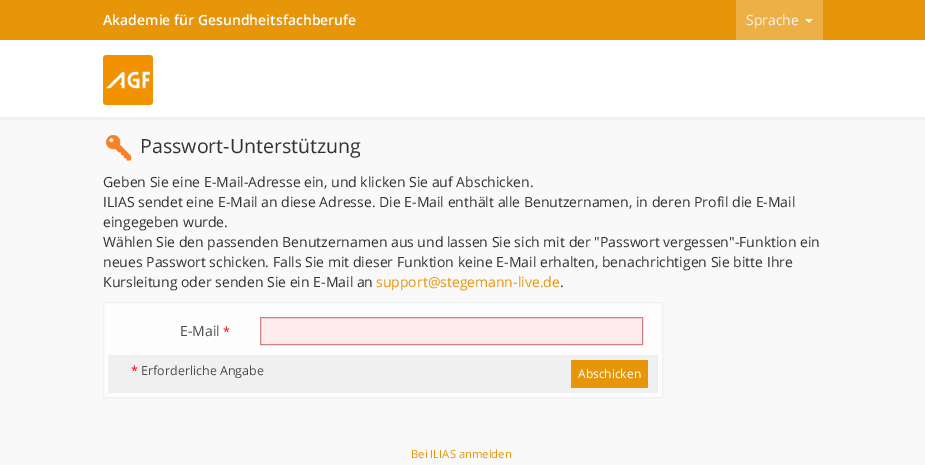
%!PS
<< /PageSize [925 465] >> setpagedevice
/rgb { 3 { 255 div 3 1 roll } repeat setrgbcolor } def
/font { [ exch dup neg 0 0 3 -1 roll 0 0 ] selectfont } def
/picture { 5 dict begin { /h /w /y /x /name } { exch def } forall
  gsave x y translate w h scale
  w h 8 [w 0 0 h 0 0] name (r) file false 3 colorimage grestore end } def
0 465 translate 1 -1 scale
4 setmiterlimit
249 249 249 rgb
0 0 925 465 rectfill
231 150 10 rgb
0 0 925 40 rectfill
237 176 71 rgb
736 0 87 40 rectfill
245 245 245 rgb
805 19 moveto 813 19 lineto 809 23 lineto closepath fill
255 255 255 rgb
0 40 925 77 rectfill
240 240 240 rgb
0 117 925 3 rectfill
(img/1.rgb) 103 55 50 50 picture
(img/2.rgb) 106 135 26 26 picture
253 253 253 rgb
103.5 302.5 moveto 662.5 302.5 lineto 662.5 397.5 lineto 103.5 397.5 lineto closepath gsave fill grestore
240 240 240 rgb
stroke
255 235 235 rgb
260.5 317.5 moveto 642.5 317.5 lineto 642.5 344.5 lineto 260.5 344.5 lineto closepath gsave fill grestore
208 128 128 rgb
stroke
240 240 240 rgb
108 355 550 38 rectfill
231 150 10 rgb
571 360 77 28 rectfill
/OpenSans-SemiBold 14 font
255 255 255 rgb
103 25 moveto (Akademie für Gesundheitsfachberufe) show
/OpenSans-Regular 14 font
245 245 245 rgb
746 25 moveto (Sprache) show
/OpenSans-Regular 19.6 font
51 51 51 rgb
140 153 moveto (Passwort-Unterstützung) show
/OpenSans-Regular 14 font
[
  [(Geben Sie eine E-Mail-Adresse ein, und klicken Sie auf Abschicken.) 103 187]
  [(ILIAS sendet eine E-Mail an diese Adresse. Die E-Mail enthält alle Benutzernamen, in deren Profil die E-Mail) 103 207]
  [(eingegeben wurde.) 103 227]
  [(Wählen Sie den passenden Benutzernamen aus und lassen Sie sich mit der "Passwort vergessen"-Funktion ein) 103 247]
  [(neues Passwort schicken. Falls Sie mit dieser Funktion keine E-Mail erhalten, benachrichtigen Sie bitte Ihre) 103 267]
  [(Kursleitung oder senden Sie ein E-Mail an) 103 287]
] { aload pop moveto show } forall
231 150 10 rgb
376 287 moveto (support@stegemann-live.de) show
51 51 51 rgb
560 287 moveto (.) show
77 77 77 rgb
180 336 moveto (E-Mail) show
/OpenSans-Regular 12.5 font
255 0 0 rgb
223 336 moveto (*) show
131 375 moveto (*) show
77 77 77 rgb
141 375 moveto (Erforderliche Angabe) show
/OpenSans-Regular 12 font
255 255 255 rgb
578 378 moveto (Abschicken) show
/OpenSans-Regular 11.25 font
231 150 10 rgb
411 458 moveto (Bei ILIAS anmelden) show
showpage
